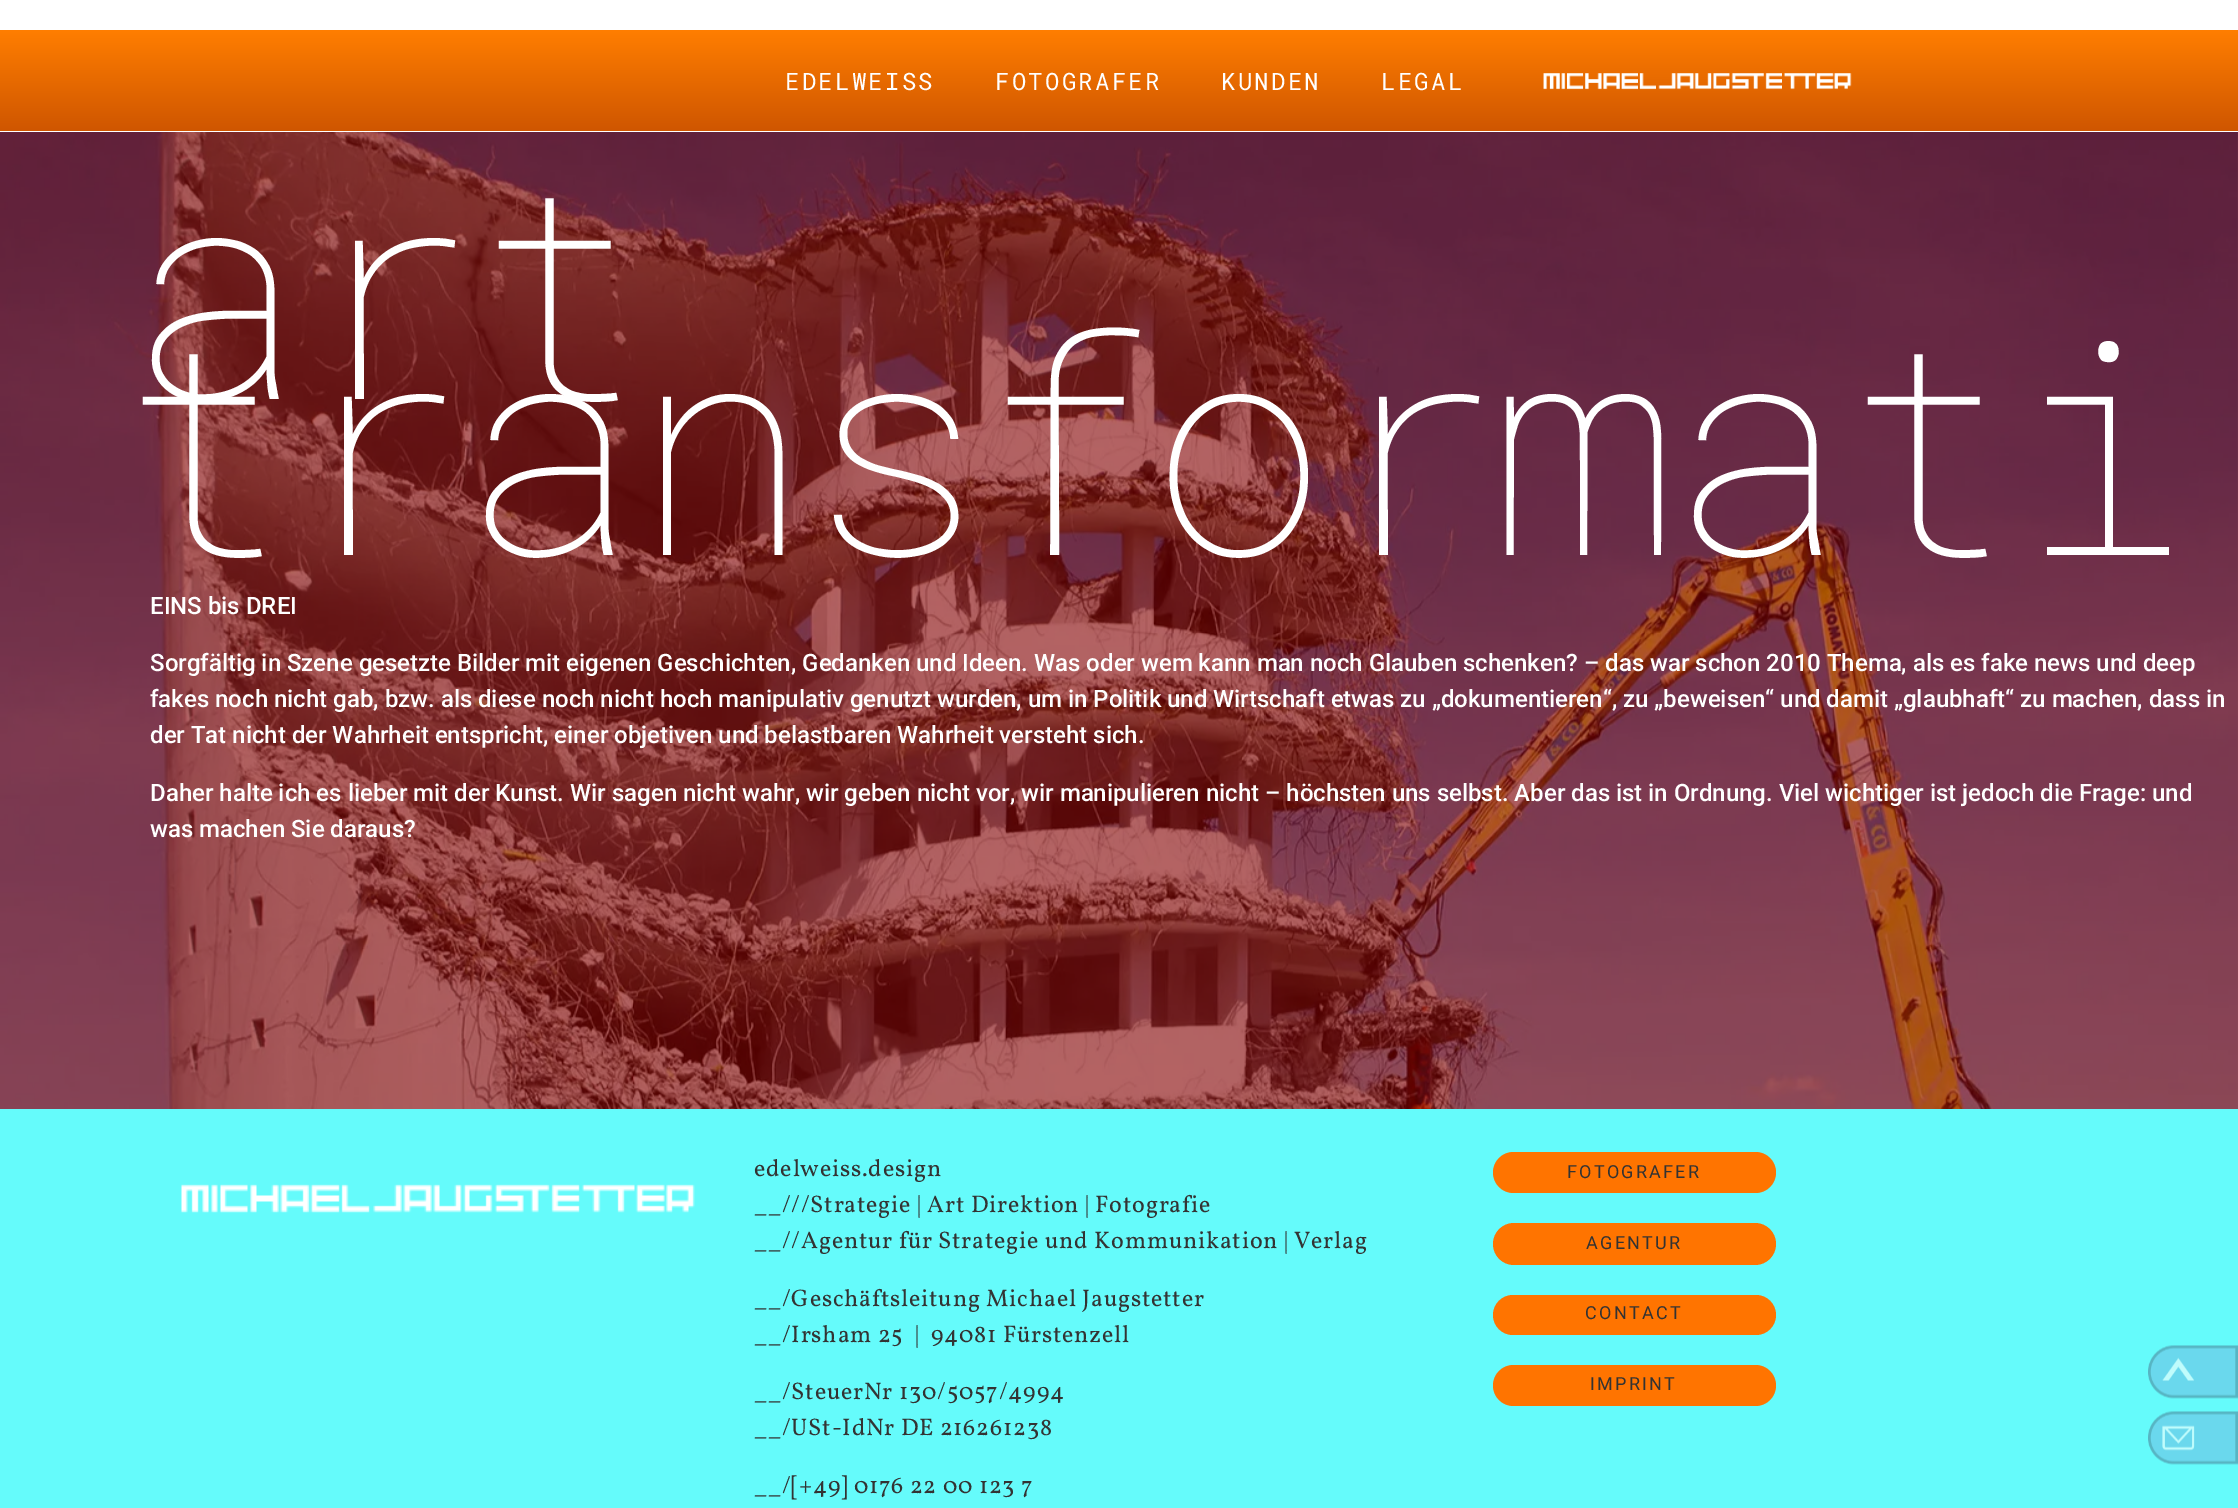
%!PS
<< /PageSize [2238 1508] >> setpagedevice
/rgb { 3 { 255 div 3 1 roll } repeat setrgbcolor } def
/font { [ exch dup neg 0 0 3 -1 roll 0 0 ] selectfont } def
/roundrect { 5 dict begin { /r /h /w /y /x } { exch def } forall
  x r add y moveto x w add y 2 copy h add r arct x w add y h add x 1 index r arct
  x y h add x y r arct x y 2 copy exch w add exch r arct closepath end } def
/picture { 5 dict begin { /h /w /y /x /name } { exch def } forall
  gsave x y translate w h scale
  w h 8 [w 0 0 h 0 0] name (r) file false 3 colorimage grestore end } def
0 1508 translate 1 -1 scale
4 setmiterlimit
255 255 255 rgb
0 0 2238 1508 rectfill
gsave 0 30 moveto 2238 30 lineto 2238 131 lineto 0 131 lineto closepath clip newpath
<< /ShadingType 2 /ColorSpace /DeviceRGB /Coords [1119 30 1119 131] /Extend [true true] /Function << /FunctionType 2 /Domain [0 1] /C0 [1 0.494 0] /C1 [0.812 0.337 0] /N 1 >> >> shfill grestore
(img/1.rgb) 1543 73 309 17 picture
101 251 251 rgb
0 1109 2238 399 rectfill
(img/2.rgb) 2148 1345 90 54 picture
(img/3.rgb) 2148 1411 90 54 picture
(img/4.rgb) 0 132 2238 977 picture
(img/5.rgb) 181 1184 514 29 picture
255 116 0 rgb
1493 1152 283 41 20.5 roundrect fill
1493 1223 283 42 21 roundrect fill
1493 1295 283 40 20 roundrect fill
1493 1365 283 41 20.5 roundrect fill
/RobotoMono-Regular 24 font
255 255 255 rgb
785 90 moveto 2.25 0 (EDELWEISS) ashow
995 90 moveto 2.25 0 (FOTOGRAFER) ashow
1221 90 moveto 2.25 0 (KUNDEN) ashow
1381 90 moveto 2.25 0 (LEGAL) ashow
/RobotoMono-Thin 300 font
125 399 moveto -7.5 0 (art) ashow
114 555 moveto -7.5 0 (transformati) ashow
/Roboto-Medium 24 font
[
  [(EINS bis DREI) 150 614]
  [(Sorgfältig in Szene gesetzte Bilder mit eigenen Geschichten, Gedanken und Ideen. Was oder wem kann man noch Glauben schenken? – das war schon 2010 Thema, als es fake news und deep) 150 671]
  [(fakes noch nicht gab, bzw. als diese noch nicht hoch manipulativ genutzt wurden, um in Politik und Wirtschaft etwas zu „dokumentieren“, zu „beweisen“ und damit „glaubhaft“ zu machen, dass in) 150 707]
  [(der Tat nicht der Wahrheit entspricht, einer objetiven und belastbaren Wahrheit versteht sich.) 150 743]
  [(Daher halte ich es lieber mit der Kunst. Wir sagen nicht wahr, wir geben nicht vor, wir manipulieren nicht – höchsten uns selbst. Aber das ist in Ordnung. Viel wichtiger ist jedoch die Frage: und) 150 801]
  [(was machen Sie daraus?) 150 837]
] { aload pop moveto show } forall
/Vollkorn-Regular 24 font
51 51 51 rgb
754 1176 moveto 0.75 0 (edelweiss.design) ashow
754 1212 moveto 0.75 0 (__///Strategie | Art Direktion | Fotografie) ashow
754 1248 moveto 0.75 0 (__//Agentur für Strategie und Kommunikation | Verlag) ashow
754 1306 moveto 0.75 0 (__/Geschäftsleitung Michael Jaugstetter) ashow
754 1342 moveto 0.75 0 (__/Irsham 25  |  94081 Fürstenzell) ashow
754 1399 moveto 0.75 0 (__/SteuerNr 130/5057/4994) ashow
754 1435 moveto 0.75 0 (__/USt-IdNr DE 216261238) ashow
754 1493 moveto 0.75 0 (__/[+49] 0176 22 00 123 7) ashow
/Roboto-Regular 18 font
1567 1178 moveto 2.25 0 (FOTOGRAFER) ashow
1586 1249 moveto 2.25 0 (AGENTUR) ashow
1585 1319 moveto 2.25 0 (CONTACT) ashow
1590 1390 moveto 2.25 0 (IMPRINT) ashow
showpage
